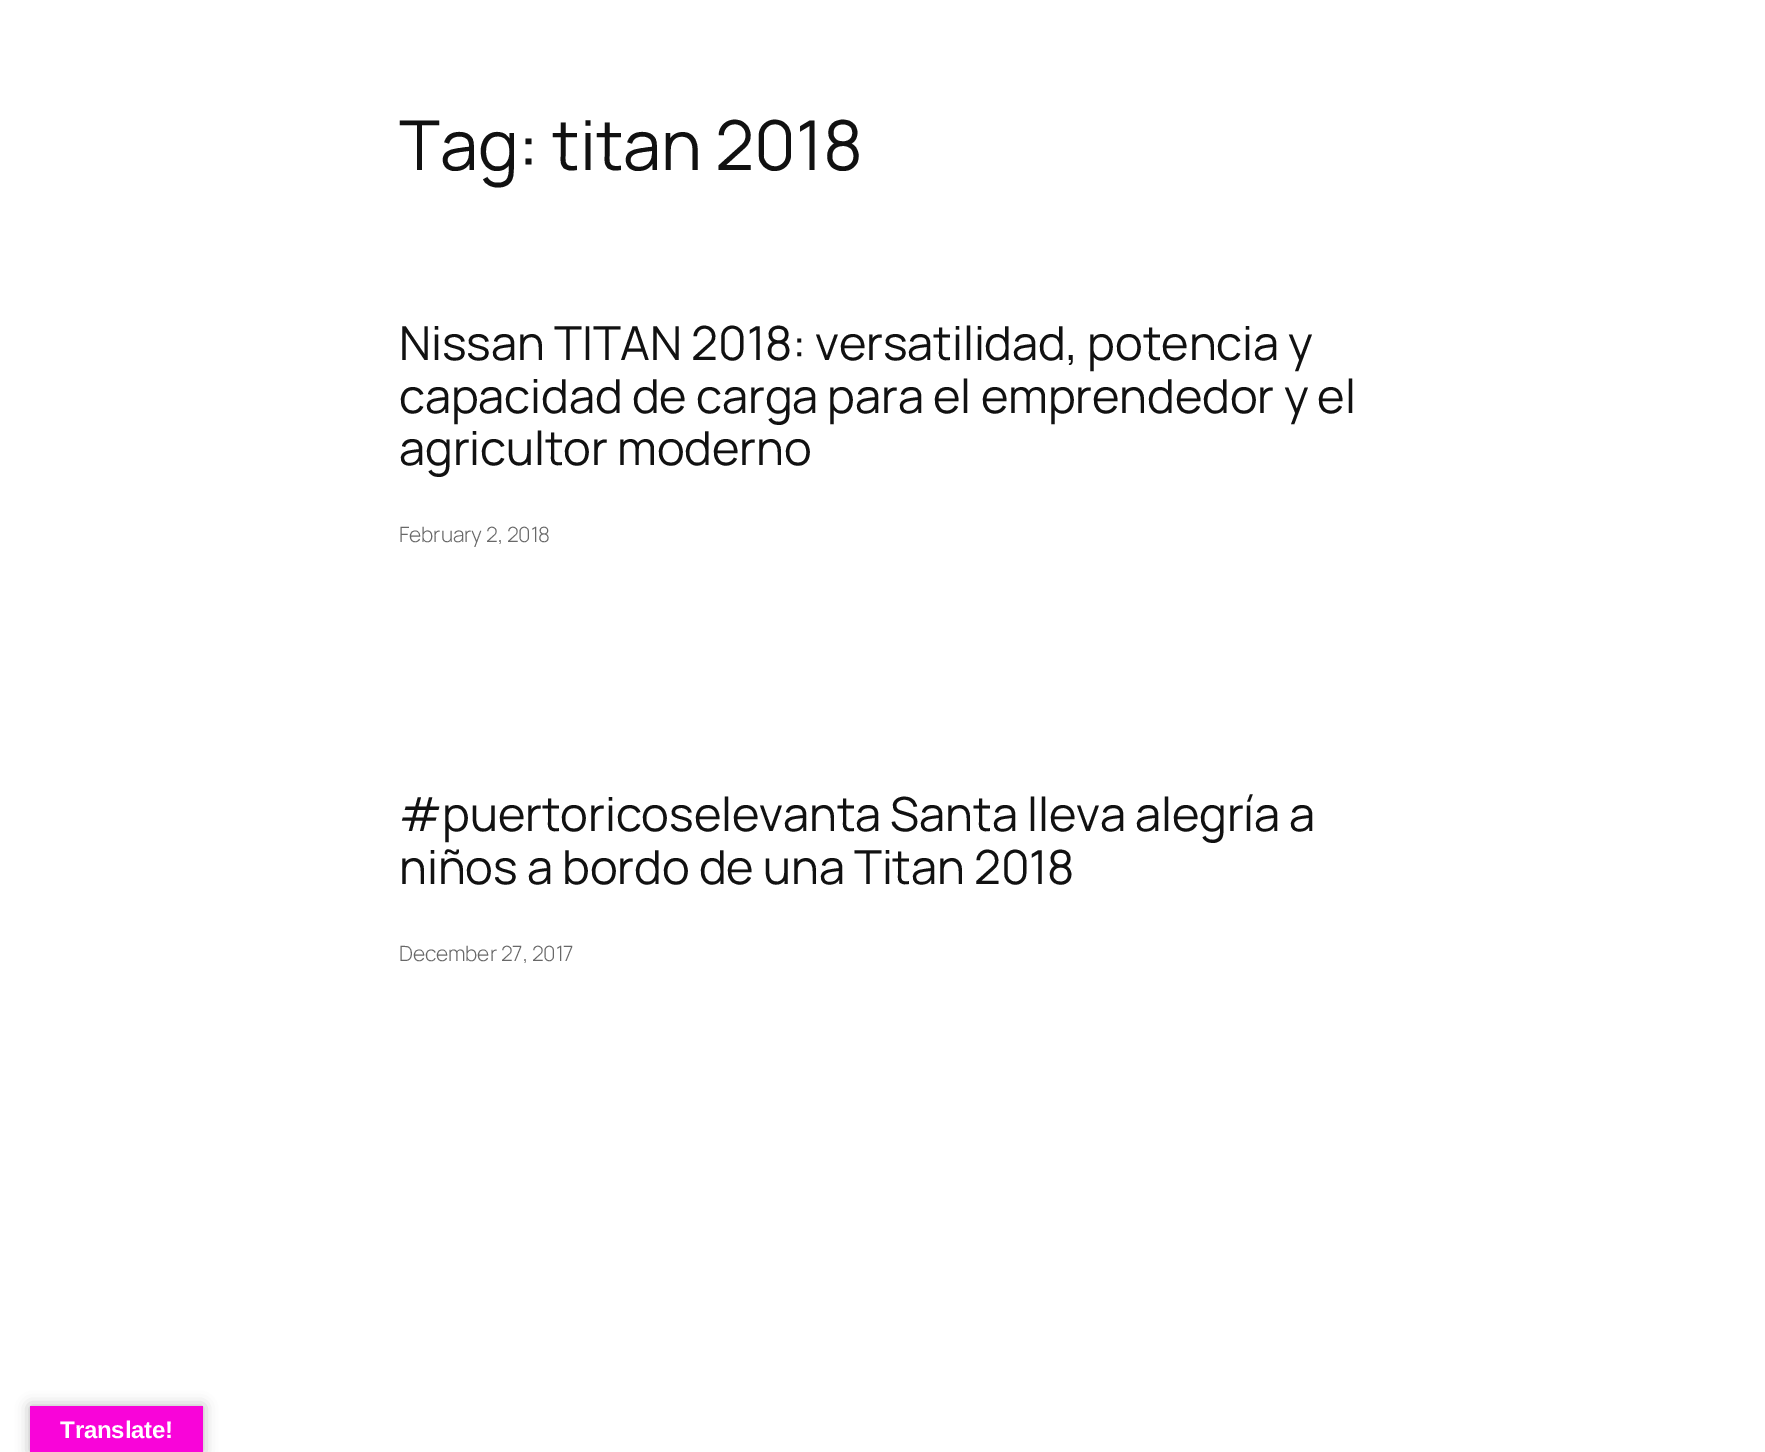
%!PS
<< /PageSize [1765 1452] /PageUsesTransparency true >> setpagedevice
/rgb { 3 { 255 div 3 1 roll } repeat setrgbcolor } def
/font { [ exch dup neg 0 0 3 -1 roll 0 0 ] selectfont } def
/alpha { dup .setfillconstantalpha .setstrokeconstantalpha } def
/roundrect { 5 dict begin { /r /h /w /y /x } { exch def } forall
  x r add y moveto x w add y 2 copy h add r arct x w add y h add x 1 index r arct
  x y h add x y r arct x y 2 copy exch w add exch r arct closepath end } def
/shadow { 12 dict begin { /a /b /q /h /w /y /x } { exch def } forall gsave /was 0 def
  9 -2 -9 { dup b mul 4 div /e exch def 1 sub .425 mul 2.718 exch exp 1 add a .99 .min exch div /now exch def
    1 1 now sub 1 was sub div sub alpha /was now def
    w h .min e 2 mul add 0 gt { x e sub y e sub w e 2 mul add h e 2 mul add
      q e add b .6 mul add w h .min 2 div e add .min 0 .max roundrect fill } if } for grestore end } def
0 .pushpdf14devicefilter
0 1452 translate 1 -1 scale
4 setmiterlimit
255 255 255 rgb
0 0 1765 1452 rectfill
0 0 0 rgb
30 1406 173 46 0 7 0.3 shadow
249 4 217 rgb
30 1406 173 46 rectfill
/Manrope-Regular 68.75 font
17 17 17 rgb
399 170 moveto -0.15 0 (Tag: titan 2018) ashow
/Manrope-Regular 47 font
399 360 moveto -0.15 0 (Nissan TITAN 2018: versatilidad, potencia y) ashow
399 413 moveto -0.15 0 (capacidad de carga para el emprendedor y el) ashow
399 465 moveto -0.15 0 (agricultor moderno) ashow
/Manrope-Light 21 font
104 104 104 rgb
399 542 moveto -0.15 0 (February 2, 2018) ashow
/Manrope-Regular 47 font
17 17 17 rgb
399 831 moveto -0.15 0 (#puertoricoselevanta Santa lleva alegría a) ashow
399 884 moveto -0.15 0 (niños a bordo de una Titan 2018) ashow
/Manrope-Light 21 font
104 104 104 rgb
399 961 moveto -0.15 0 (December 27, 2017) ashow
/LiberationSans-Bold 24 font
255 255 255 rgb
60 1438 moveto -0.15 0 (Translate!) ashow
.poppdf14devicefilter showpage
